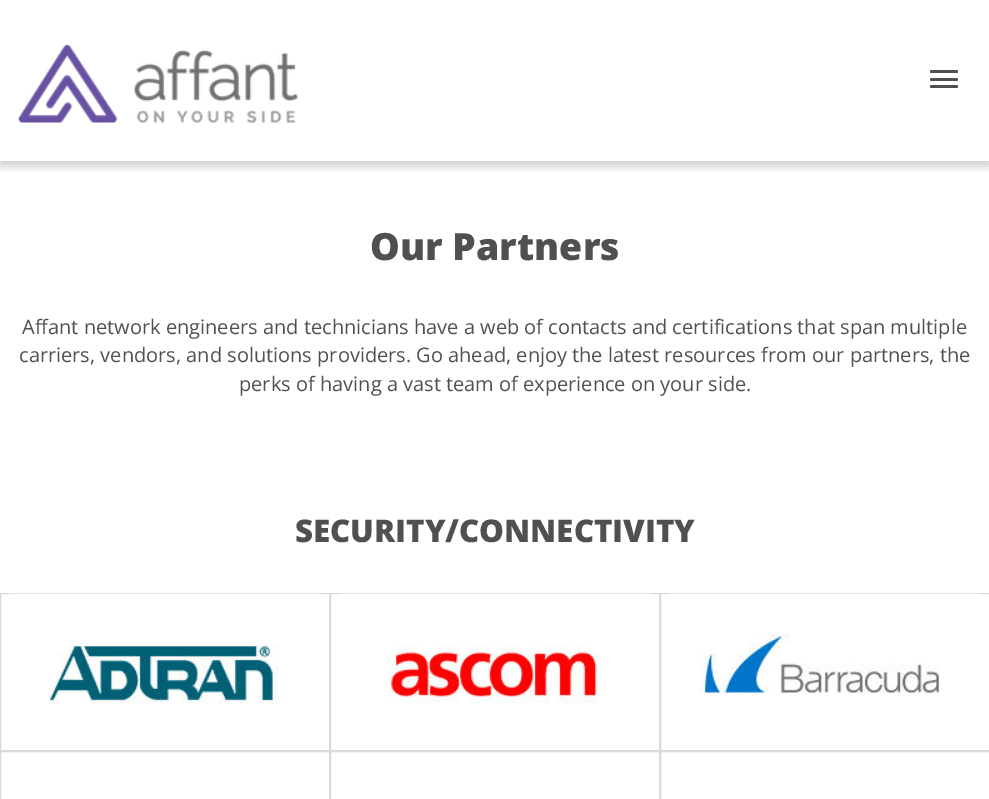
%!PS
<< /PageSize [989 799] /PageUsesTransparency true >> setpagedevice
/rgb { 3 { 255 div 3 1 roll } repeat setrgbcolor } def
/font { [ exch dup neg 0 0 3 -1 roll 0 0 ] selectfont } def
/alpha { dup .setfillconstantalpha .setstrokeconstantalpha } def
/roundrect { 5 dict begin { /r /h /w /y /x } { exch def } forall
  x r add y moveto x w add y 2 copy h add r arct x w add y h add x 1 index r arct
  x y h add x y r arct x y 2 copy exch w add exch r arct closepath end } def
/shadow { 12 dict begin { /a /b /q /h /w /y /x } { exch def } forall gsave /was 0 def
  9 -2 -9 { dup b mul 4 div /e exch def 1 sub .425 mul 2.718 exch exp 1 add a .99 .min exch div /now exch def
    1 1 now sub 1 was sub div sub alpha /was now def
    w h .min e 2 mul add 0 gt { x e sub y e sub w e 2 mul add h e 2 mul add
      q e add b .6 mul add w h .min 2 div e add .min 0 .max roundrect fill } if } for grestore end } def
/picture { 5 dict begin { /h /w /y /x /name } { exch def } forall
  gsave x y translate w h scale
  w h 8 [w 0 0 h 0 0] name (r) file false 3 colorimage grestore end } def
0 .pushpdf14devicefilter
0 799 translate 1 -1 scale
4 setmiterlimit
255 255 255 rgb
0 0 989 799 rectfill
gsave
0 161 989 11 rectclip
0 0 0 rgb
0 4 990 162 0 5 0.2 shadow
grestore
(img/1.rgb) 18 45 280 78 picture
80 80 80 rgb
930 70 28 3 1.5 roundrect fill
930 78 28 3 1.5 roundrect fill
930 85 28 3 1.5 roundrect fill
218 218 219 rgb
0.5 593.5 329 157 rectstroke
(img/2.rgb) 9 593 312 111 picture
330.5 593.5 329 157 rectstroke
(img/3.rgb) 339 593 312 111 picture
660.5 593.5 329 157 rectstroke
(img/4.rgb) 669 593 312 101 picture
0.5 751.5 329 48 rectstroke
330.5 751.5 329 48 rectstroke
660.5 751.5 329 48 rectstroke
/OpenSans-ExtraBold 37.5 font
80 80 80 rgb
370 260 moveto (Our Partners) show
/OpenSans-Regular 20 font
[
  [(Affant network engineers and technicians have a web of contacts and certifications that span multiple) 22 334]
  [(carriers, vendors, and solutions providers. Go ahead, enjoy the latest resources from our partners, the) 19 362]
  [(perks of having a vast team of experience on your side.) 239 391]
] { aload pop moveto show } forall
/OpenSans-ExtraBold 31.25 font
295 542 moveto (SECURITY/CONNECTIVITY) show
.poppdf14devicefilter showpage
